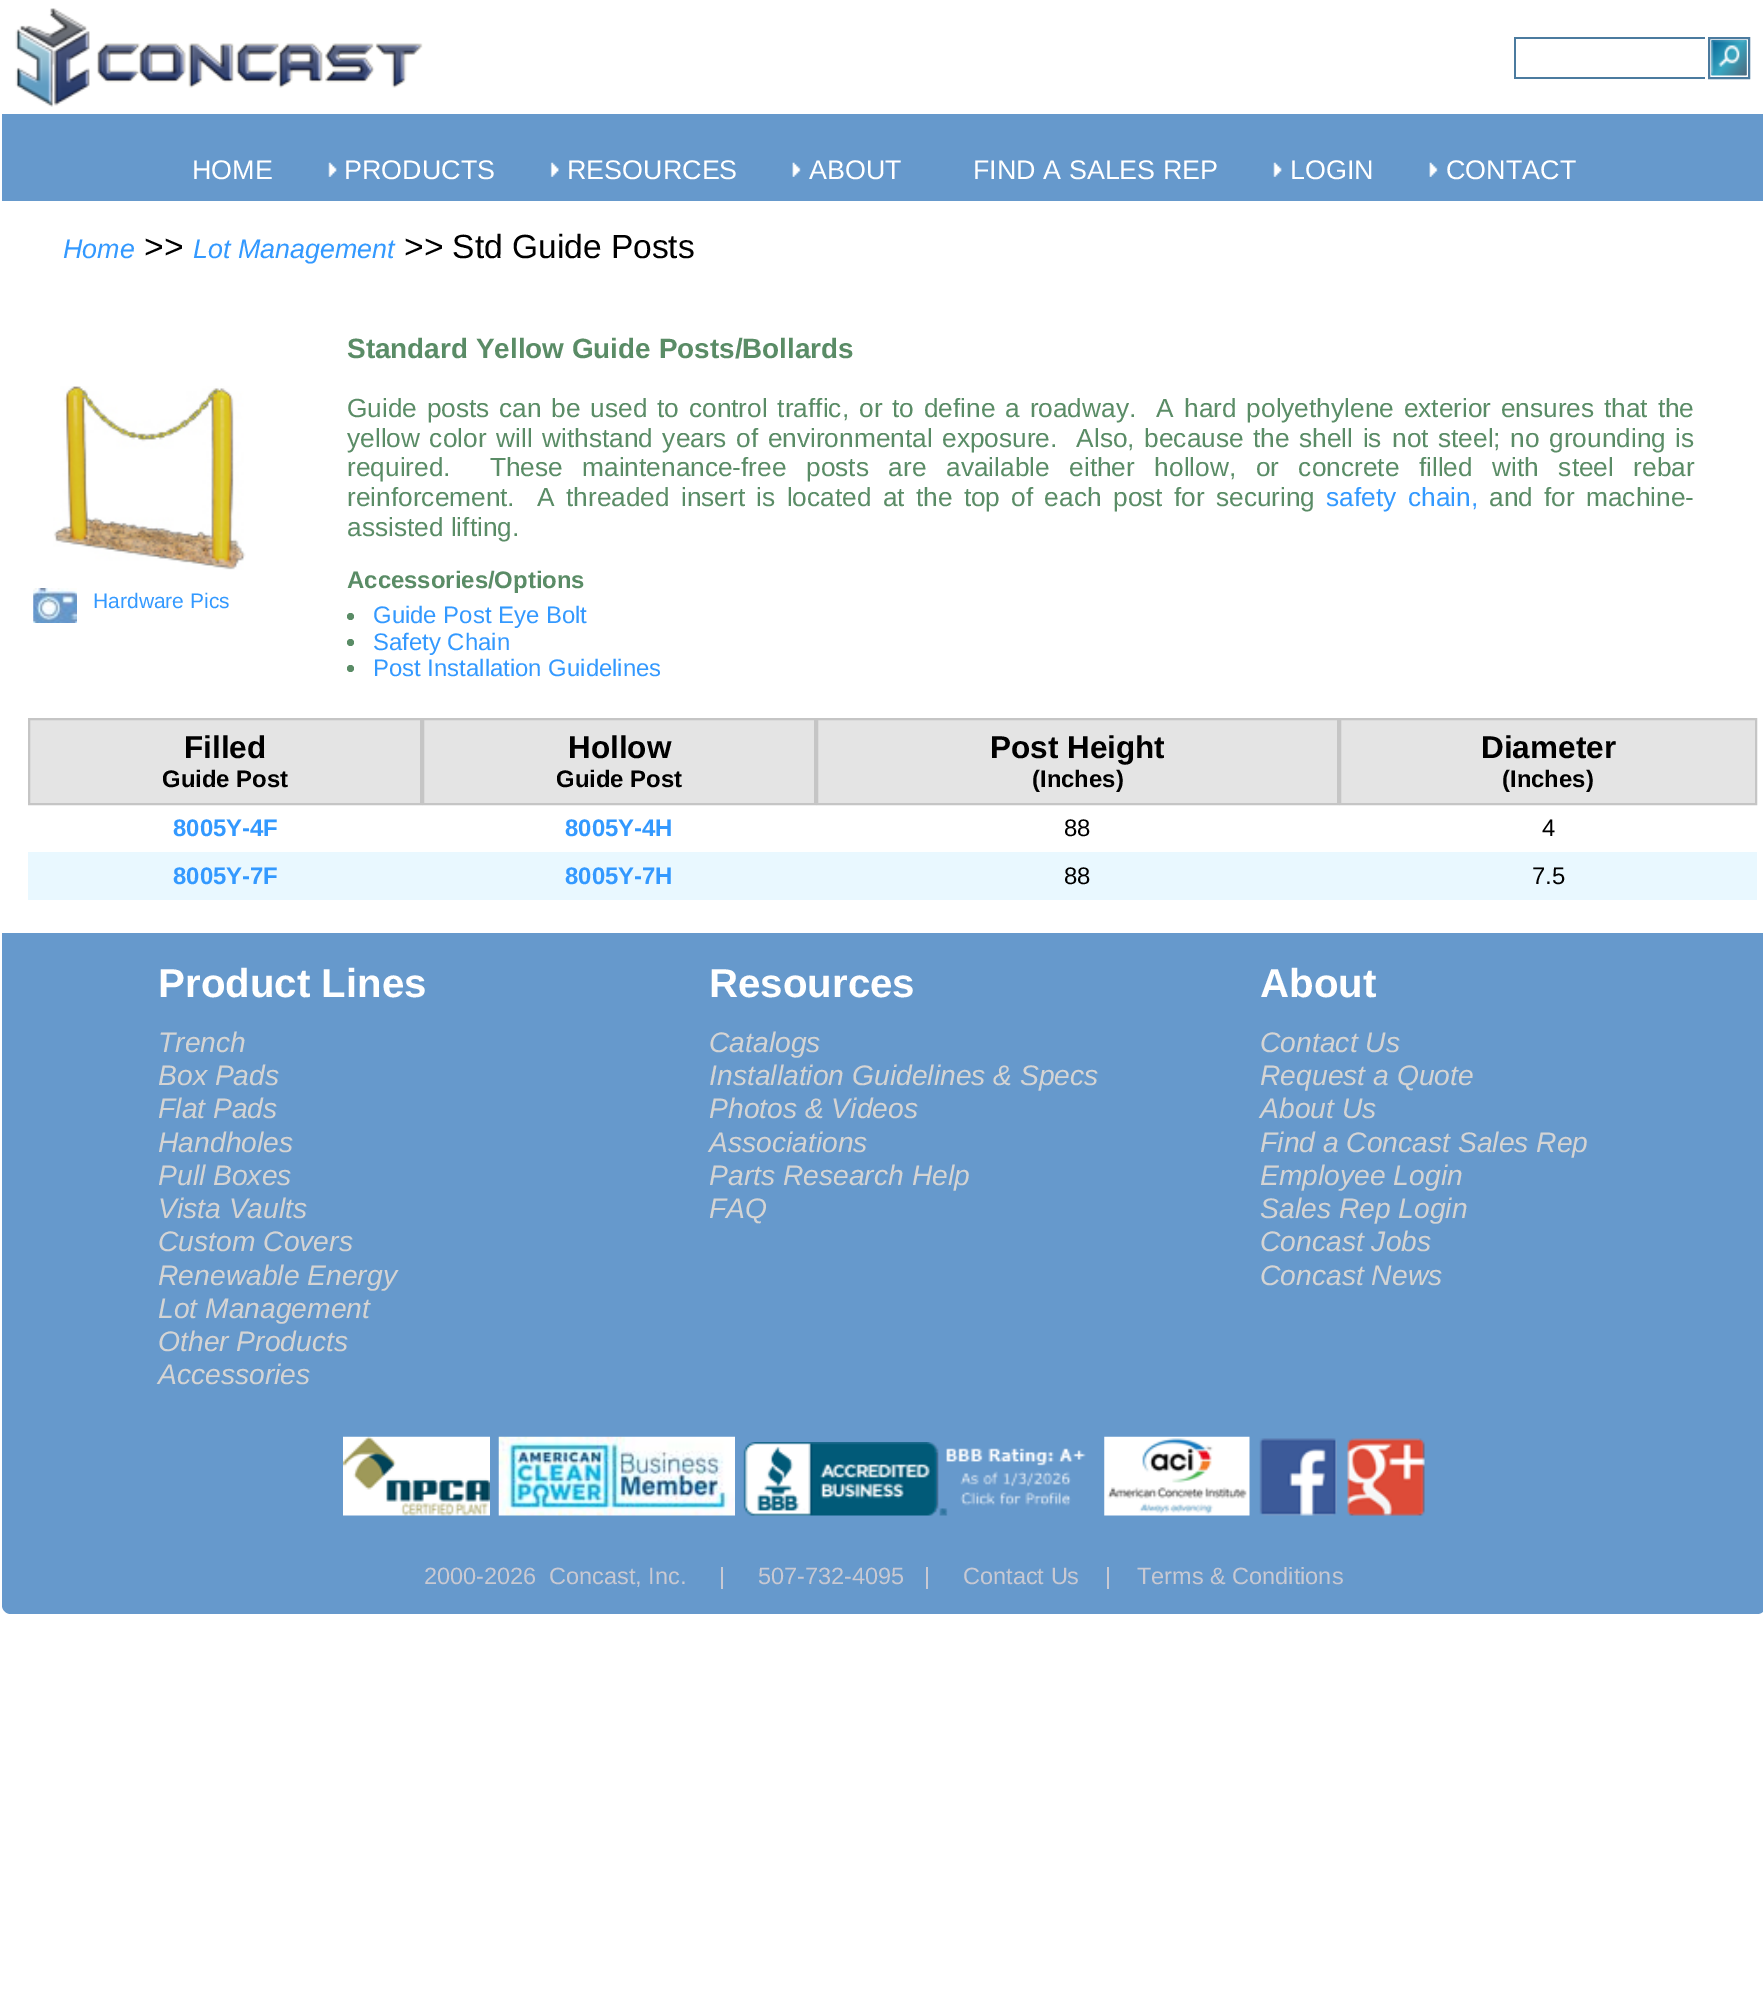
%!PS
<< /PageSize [1763 2006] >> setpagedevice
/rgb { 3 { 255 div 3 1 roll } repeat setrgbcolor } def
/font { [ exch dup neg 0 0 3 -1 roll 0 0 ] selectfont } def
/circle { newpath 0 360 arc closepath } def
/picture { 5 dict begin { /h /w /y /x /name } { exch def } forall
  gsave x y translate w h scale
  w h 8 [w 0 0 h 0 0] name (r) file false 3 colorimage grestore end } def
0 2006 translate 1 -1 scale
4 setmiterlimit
255 255 255 rgb
0 0 1763 2006 rectfill
102 153 204 rgb
2 114 1761 87 rectfill
(img/1.rgb) 15 8 408 99 picture
[
  [1514 37 191 2 75 123 159]
  [1514 77 191 2 75 123 159]
  [1514 37 2 42 75 123 159]
] { aload pop rgb rectfill } forall
2 setlinewidth
1709 38 40 40 rectstroke
(img/2.rgb) 1711 40 36 36 picture
(img/3.rgb) 1711 40 36 36 picture
(img/4.rgb) 328 162 9 15 picture
(img/5.rgb) 550 162 9 15 picture
(img/6.rgb) 792 162 9 15 picture
(img/4.rgb) 1273 162 9 15 picture
(img/7.rgb) 1429 162 9 15 picture
(img/8.rgb) 53 386 193 184 picture
(img/9.rgb) 33 588 44 35 picture
90 140 102 rgb
350.5 616.5 3.5 circle fill
350.5 642.5 3.5 circle fill
350.5 668.5 3.5 circle fill
228 228 228 rgb
29 719 moveto 421 719 lineto 421 804 lineto 29 804 lineto closepath gsave fill grestore
197 197 197 rgb
stroke
228 228 228 rgb
423 719 moveto 815 719 lineto 815 804 lineto 423 804 lineto closepath gsave fill grestore
197 197 197 rgb
stroke
228 228 228 rgb
817 719 moveto 1338 719 lineto 1338 804 lineto 817 804 lineto closepath gsave fill grestore
197 197 197 rgb
stroke
228 228 228 rgb
1340 719 moveto 1756 719 lineto 1756 804 lineto 1340 804 lineto closepath gsave fill grestore
197 197 197 rgb
stroke
233 248 255 rgb
28 852 1729 48 rectfill
102 153 204 rgb
2 933 moveto 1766 933 lineto 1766 1605 lineto 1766 1610 1762 1614 1757 1614 curveto 11 1614 lineto 6 1614 2 1610 2 1605 curveto closepath fill
(img/10.rgb) 343 1436 147 80 picture
(img/11.rgb) 498 1436 237 80 picture
(img/12.rgb) 743 1442 343 74 picture
(img/13.rgb) 1104 1436 146 80 picture
(img/14.rgb) 1259 1438 78 78 picture
(img/15.rgb) 1347 1438 78 78 picture
/LiberationSans-Regular 26.9 font
255 255 255 rgb
[
  [(HOME) 192 179]
  [(PRODUCTS) 344 179]
  [(RESOURCES) 567 179]
  [(ABOUT) 809 179]
  [(FIND A SALES REP) 973 179]
  [(LOGIN) 1290 179]
  [(CONTACT) 1446 179]
] { aload pop moveto show } forall
/LiberationSans-Italic 26.9 font
51 153 255 rgb
63 258 moveto (Home) show
/LiberationSans-Regular 33.5 font
0 0 0 rgb
144 258 moveto (>>) show
/LiberationSans-Italic 26.9 font
51 153 255 rgb
193 258 moveto (Lot Management) show
/LiberationSans-Regular 33.5 font
0 0 0 rgb
404 258 moveto (>> Std Guide Posts) show
/LiberationSans-Regular 21 font
51 153 255 rgb
93 608 moveto (Hardware Pics) show
/LiberationSans-Bold 27.9 font
90 140 102 rgb
347 358 moveto (Standard Yellow Guide Posts/Bollards) show
/LiberationSans-Regular 26.25 font
347 417 moveto 2.5 0 32 (Guide posts can be used to control traffic,) widthshow
859 417 moveto 2.5 0 32 (or to define a roadway.  A) widthshow
1184 417 moveto 2.5 0 32 (hard polyethylene exterior ensures that the) widthshow
347 447 moveto 2.25 0 32 (yellow color will) widthshow
542 447 moveto 2.25 0 32 (withstand years of environmental exposure.  Also, because the shell is) widthshow
1392 447 moveto 2.25 0 32 (not steel; no grounding is) widthshow
347 476 moveto 12.25 0 32 (required.  These maintenance-free posts are) widthshow
946 476 moveto 12.25 0 32 (available either hollow, or concrete filled with steel rebar) widthshow
347 506 moveto 4 0 32 (reinforcement.  A) widthshow
566 506 moveto 4 0 32 (threaded insert is located at the top of each) widthshow
1113 506 moveto 4 0 32 (post for securing) widthshow
51 153 255 rgb
1326 506 moveto (safety) show
1408 506 moveto (chain,) show
90 140 102 rgb
1489 506 moveto 4 0 32 (and for machine-) widthshow
347 536 moveto (assisted lifting.) show
/LiberationSans-Bold 23.9 font
347 588 moveto (Accessories/Options) show
/LiberationSans-Regular 23.9 font
51 153 255 rgb
[
  [(Guide Post Eye Bolt) 373 623]
  [(Safety Chain) 373 650]
  [(Post Installation Guidelines) 373 676]
] { aload pop moveto show } forall
/LiberationSans-Bold 31.5 font
0 0 0 rgb
184 758 moveto (Filled) show
/LiberationSans-Bold 23.9 font
162 787 moveto (Guide Post) show
/LiberationSans-Bold 31.5 font
568 758 moveto (Hollow) show
/LiberationSans-Bold 23.9 font
556 787 moveto (Guide Post) show
/LiberationSans-Bold 31.5 font
990 758 moveto (Post Height) show
/LiberationSans-Bold 23.9 font
1032 787 moveto (\(Inches\)) show
/LiberationSans-Bold 31.5 font
1481 758 moveto (Diameter) show
/LiberationSans-Bold 23.9 font
1502 787 moveto (\(Inches\)) show
51 153 255 rgb
173 836 moveto (8005Y-4F) show
565 836 moveto (8005Y-4H) show
/LiberationSans-Regular 23.9 font
0 0 0 rgb
1064 836 moveto (88) show
1542 836 moveto (4) show
/LiberationSans-Bold 23.9 font
51 153 255 rgb
173 884 moveto (8005Y-7F) show
565 884 moveto (8005Y-7H) show
/LiberationSans-Regular 23.9 font
0 0 0 rgb
1064 884 moveto (88) show
1532 884 moveto (7.5) show
/LiberationSans-Bold 40.25 font
255 255 255 rgb
158 997 moveto (Product Lines) show
/LiberationSans-Italic 28.25 font
212 212 212 rgb
[
  [(Trench) 158 1052]
  [(Box Pads) 158 1085]
  [(Flat Pads) 158 1118]
  [(Handholes) 158 1152]
  [(Pull Boxes) 158 1185]
  [(Vista Vaults) 158 1218]
  [(Custom Covers) 158 1251]
  [(Renewable Energy) 158 1285]
  [(Lot Management) 158 1318]
  [(Other Products) 158 1351]
  [(Accessories) 158 1384]
] { aload pop moveto show } forall
/LiberationSans-Bold 40.25 font
255 255 255 rgb
709 997 moveto (Resources) show
/LiberationSans-Italic 28.25 font
212 212 212 rgb
[
  [(Catalogs) 709 1052]
  [(Installation Guidelines & Specs) 709 1085]
  [(Photos & Videos) 709 1118]
  [(Associations) 709 1152]
  [(Parts Research Help) 709 1185]
  [(FAQ) 709 1218]
] { aload pop moveto show } forall
/LiberationSans-Bold 40.25 font
255 255 255 rgb
1260 997 moveto (About) show
/LiberationSans-Italic 28.25 font
212 212 212 rgb
[
  [(Contact Us) 1260 1052]
  [(Request a Quote) 1260 1085]
  [(About Us) 1260 1118]
  [(Find a Concast Sales Rep) 1260 1152]
  [(Employee Login) 1260 1185]
  [(Sales Rep Login) 1260 1218]
  [(Concast Jobs) 1260 1251]
  [(Concast News) 1260 1285]
] { aload pop moveto show } forall
/LiberationSans-Regular 23.5 font
200 201 211 rgb
[
  [(2000-2026) 424 1584]
  [(Concast, Inc.     |) 549 1584]
  [(507-732-4095   |) 758 1584]
  [(Contact Us    |) 963 1584]
  [(Terms & Conditions) 1137 1584]
] { aload pop moveto show } forall
showpage
